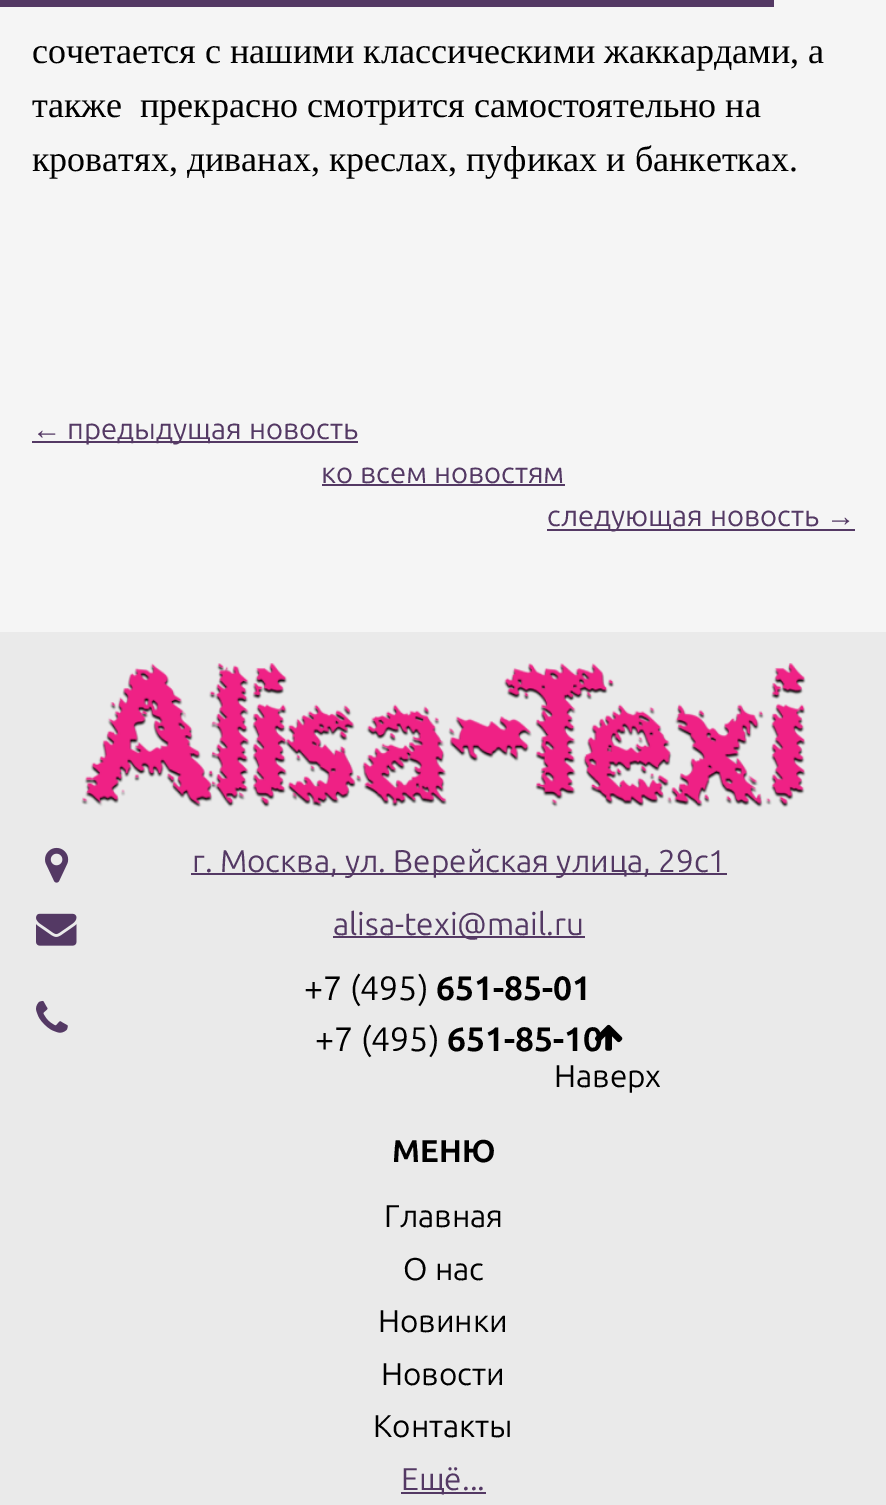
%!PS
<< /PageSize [886 1505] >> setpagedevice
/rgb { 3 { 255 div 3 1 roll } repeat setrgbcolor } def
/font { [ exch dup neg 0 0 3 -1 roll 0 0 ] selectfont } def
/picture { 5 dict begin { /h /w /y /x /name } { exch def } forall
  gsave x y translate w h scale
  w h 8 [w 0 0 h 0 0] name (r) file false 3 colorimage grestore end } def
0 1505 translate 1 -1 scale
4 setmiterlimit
245 245 245 rgb
0 0 886 1505 rectfill
[
  [0 0 774 7 84 57 100]
  [32 441 326 2 84 57 100]
  [322 484 243 2 84 57 100]
  [547 529 308 2 84 57 100]
  [0 632 886 873 234 234 234]
] { aload pop rgb rectfill } forall
(img/1.rgb) 81 663 725 145 picture
(img/2.rgb) 45 847 24 36 picture
84 57 100 rgb
191 873 536 2 rectfill
(img/3.rgb) 36 913 41 33 picture
333 936 252 2 rectfill
(img/4.rgb) 36 1000 32 33 picture
401 1492 85 2 rectfill
/LiberationSerif-Regular 36 font
0 0 0 rgb
[
  [(сочетается с нашими классическими жаккардами, а) 32 63]
  [(также  прекрасно смотрится самостоятельно на) 32 117]
  [(кроватях, диванах, креслах, пуфиках и банкетках.) 32 171]
] { aload pop moveto show } forall
/LiberationSans-Regular 29.25 font
84 57 100 rgb
32 439 moveto (←) show
/Ubuntu-Regular 29.25 font
[
  [(предыдущая новость) 67 439]
  [(ко всем новостям) 321 483]
  [(следующая новость) 547 526]
] { aload pop moveto show } forall
/LiberationSans-Regular 29.25 font
826 526 moveto (→) show
/Ubuntu-Regular 31.5 font
192 872 moveto (г. Москва, ул. Верейская улица, 29с1) show
333 935 moveto (alisa-texi@mail.ru) show
/Ubuntu-Regular 33.75 font
0 0 0 rgb
304 1000 moveto (+7 \(495\)) show
/Ubuntu-Bold 33.75 font
436 1000 moveto (651-85-01) show
/Ubuntu-Regular 33.75 font
315 1051 moveto (+7 \(495\)) show
/Ubuntu-Bold 33.75 font
447 1051 moveto (651-85-10) show
/Ubuntu-Bold 31.5 font
392 1162 moveto (МЕНЮ) show
/Ubuntu-Regular 31.5 font
[
  [(Главная) 384 1227]
  [(О нас) 403 1280]
  [(Новинки) 378 1332]
  [(Новости) 381 1385]
  [(Контакты) 373 1437]
] { aload pop moveto show } forall
84 57 100 rgb
401 1490 moveto (Ещё...) show
(img/5.rgb) 594 1024 29 27 picture
0 0 0 rgb
554 1087 moveto (Наверх) show
showpage
